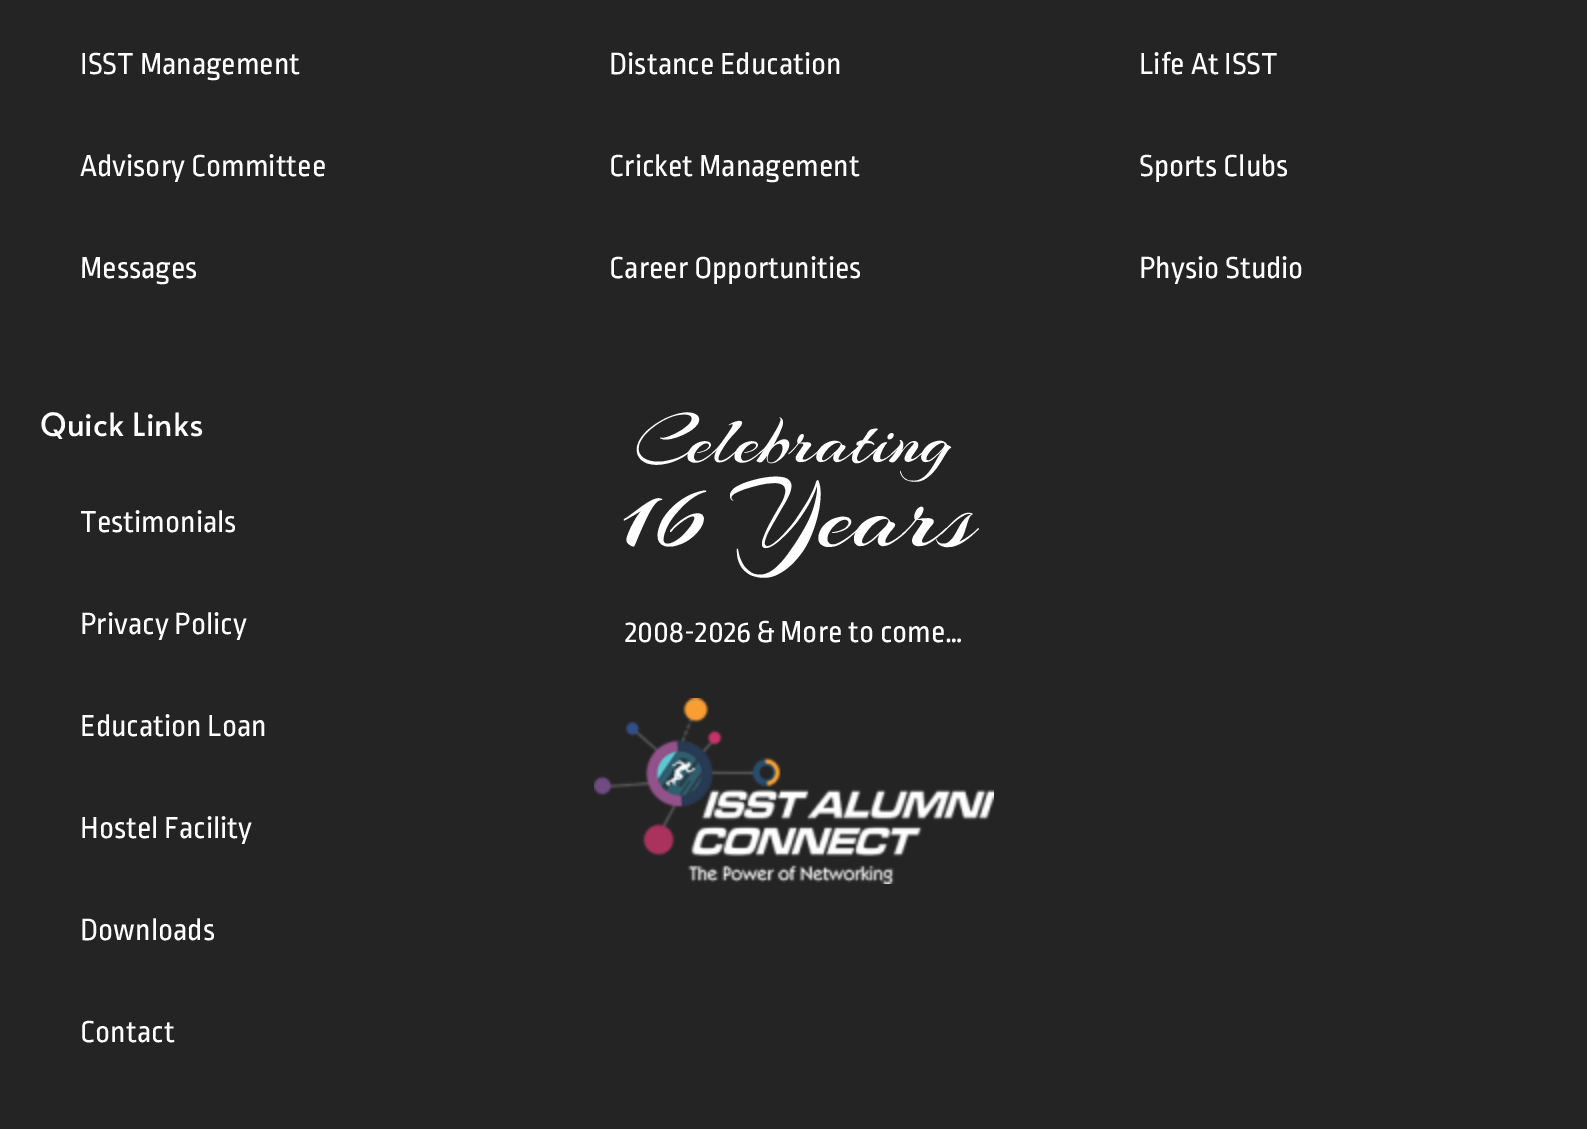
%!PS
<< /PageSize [1587 1129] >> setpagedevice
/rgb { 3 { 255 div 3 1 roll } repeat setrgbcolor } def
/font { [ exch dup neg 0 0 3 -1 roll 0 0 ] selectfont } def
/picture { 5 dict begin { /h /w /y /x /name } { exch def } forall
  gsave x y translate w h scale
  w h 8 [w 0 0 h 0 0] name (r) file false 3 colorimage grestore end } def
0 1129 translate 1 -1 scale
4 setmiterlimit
36 36 36 rgb
0 0 1587 1129 rectfill
(img/1.rgb) 594 698 400 186 picture
/RopaSans-Regular 32 font
255 255 255 rgb
[
  [(ISST Management) 80 74]
  [(Advisory Committee) 80 176]
  [(Messages) 80 278]
  [(Distance Education) 609 74]
  [(Cricket Management) 609 176]
  [(Career Opportunities) 609 278]
  [(Life At ISST) 1139 74]
  [(Sports Clubs) 1139 176]
  [(Physio Studio) 1139 278]
] { aload pop moveto show } forall
/Alata-Regular 32 font
40 436 moveto (Quick Links) show
/RopaSans-Regular 32 font
[
  [(Testimonials) 80 532]
  [(Privacy Policy) 80 634]
  [(Education Loan) 80 736]
  [(Hostel Facility) 80 838]
  [(Downloads) 80 940]
  [(Contact) 80 1042]
] { aload pop moveto show } forall
/Arizonia-Regular 74 font
635 462 moveto (Celebrating) show
/Arizonia-Regular 104 font
614 546 moveto (16 Years) show
/RopaSans-Regular 32 font
625 642 moveto (2008-2026 & More to come…) show
showpage
